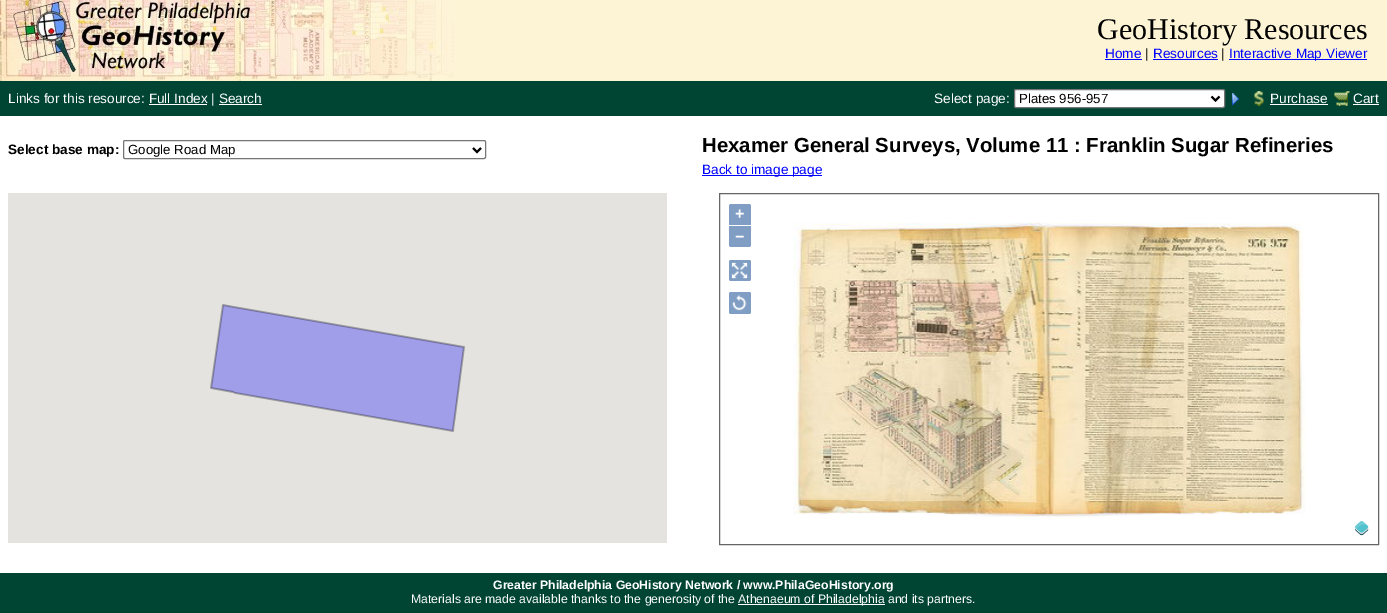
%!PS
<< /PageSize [1387 613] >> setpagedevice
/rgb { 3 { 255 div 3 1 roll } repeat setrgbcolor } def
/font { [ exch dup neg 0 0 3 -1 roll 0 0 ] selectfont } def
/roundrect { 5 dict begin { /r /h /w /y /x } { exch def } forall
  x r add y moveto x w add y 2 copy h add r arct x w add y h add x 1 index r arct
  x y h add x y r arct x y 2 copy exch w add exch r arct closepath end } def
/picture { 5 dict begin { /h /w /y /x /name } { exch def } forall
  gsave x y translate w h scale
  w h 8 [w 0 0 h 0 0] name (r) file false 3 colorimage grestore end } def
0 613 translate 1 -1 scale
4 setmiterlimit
255 255 255 rgb
0 0 1387 613 rectfill
253 244 213 rgb
454 0 933 81 rectfill
(img/1.rgb) 0 0 454 81 picture
[
  [1105 59 37 1 0 0 255]
  [1153 59 65 1 0 0 255]
  [1229 59 138 1 0 0 255]
  [0 81 1387 35 0 68 51]
  [149 104 58 1 255 255 255]
  [219 104 43 1 255 255 255]
] { aload pop rgb rectfill } forall
1014.5 89.5 210 18 1.5 roundrect gsave fill grestore
118 118 118 rgb
stroke
0 0 0 rgb
2 setlinewidth
1211.5 96.5 moveto 1215.5 100.5 lineto 1219.5 96.5 lineto stroke
(img/2.rgb) 1232 93 7 12 picture
(img/3.rgb) 1254 91 10 15 picture
255 255 255 rgb
1270 104 58 1 rectfill
(img/4.rgb) 1334 91 16 15 picture
1353 104 26 1 rectfill
118 118 118 rgb
1 setlinewidth
123.5 140.5 362 18 1.5 roundrect stroke
0 0 0 rgb
2 setlinewidth
473 148 moveto 477 152 lineto 481 148 lineto stroke
0 0 255 rgb
702 175 120 1 rectfill
229 227 223 rgb
8 193 659 350 rectfill
(img/5.rgb) 210 304 24 90 picture
(img/6.rgb) 234 306 231 115 picture
(img/7.rgb) 391 421 65 11 picture
102 102 102 rgb
1 setlinewidth
719.5 193.5 659 351 rectstroke
128 158 196 rgb
731 204 moveto 749 204 lineto 750 204 751 205 751 206 curveto 751 225 lineto 729 225 lineto 729 206 lineto 729 205 730 204 731 204 curveto closepath fill
729 226 moveto 751 226 lineto 751 245 lineto 751 246 750 247 749 247 curveto 731 247 lineto 730 247 729 246 729 245 curveto closepath fill
729 260 22 21 2 roundrect fill
(img/8.rgb) 731 262 17 17 picture
729 292 22 22 2 roundrect fill
(img/9.rgb) 732 295 15 16 picture
(img/10.rgb) 1355 521 14 15 picture
(img/11.rgb) 793 222 512 295 picture
0 68 51 rgb
0 573 1387 40 rectfill
255 255 255 rgb
738 604 147 1 rectfill
/LiberationSerif-Regular 30 font
0 0 0 rgb
1097 39 moveto (GeoHistory Resources) show
/LiberationSans-Regular 13.6 font
0 0 255 rgb
1105 58 moveto (Home) show
0 0 0 rgb
1145 58 moveto (|) show
0 0 255 rgb
1153 58 moveto (Resources) show
0 0 0 rgb
1221 58 moveto (|) show
0 0 255 rgb
1229 58 moveto (Interactive Map Viewer) show
255 255 255 rgb
8 103 moveto (Links for this resource: Full Index | Search) show
934 103 moveto (Select page:) show
/LiberationSans-Regular 13.25 font
0 0 0 rgb
1019 103 moveto (Plates 956-957) show
/LiberationSans-Regular 13.6 font
255 255 255 rgb
1270 103 moveto (Purchase) show
1353 103 moveto (Cart) show
/LiberationSans-Bold 13.6 font
0 0 0 rgb
8 154 moveto (Select base map:) show
/LiberationSans-Regular 13.25 font
128 154 moveto (Google Road Map) show
/LiberationSans-Bold 20.4 font
702 152 moveto (Hexamer General Surveys, Volume 11 : Franklin Sugar Refineries) show
/LiberationSans-Regular 13.6 font
0 0 255 rgb
702 174 moveto (Back to image page) show
/LiberationSans-Bold 16 font
255 255 255 rgb
735 219 moveto (+) show
735 242 moveto (−) show
/LiberationSans-Bold 12.25 font
493 589 moveto (Greater Philadelphia GeoHistory Network / www.PhilaGeoHistory.org) show
/LiberationSans-Regular 12.25 font
411 603 moveto (Materials are made available thanks to the generosity of the) show
738 603 moveto (Athenaeum of Philadelphia and its partners.) show
showpage
